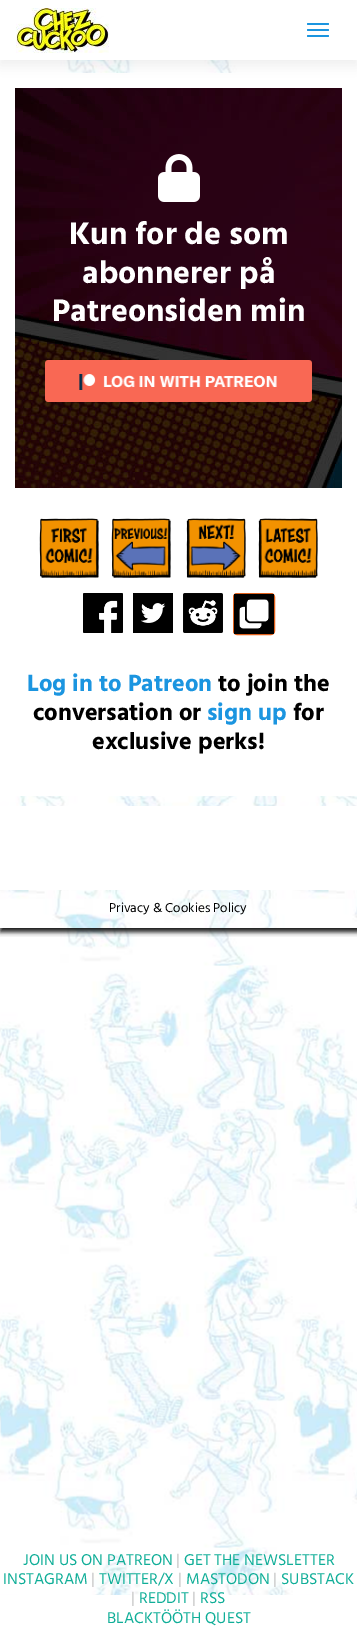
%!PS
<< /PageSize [357 1640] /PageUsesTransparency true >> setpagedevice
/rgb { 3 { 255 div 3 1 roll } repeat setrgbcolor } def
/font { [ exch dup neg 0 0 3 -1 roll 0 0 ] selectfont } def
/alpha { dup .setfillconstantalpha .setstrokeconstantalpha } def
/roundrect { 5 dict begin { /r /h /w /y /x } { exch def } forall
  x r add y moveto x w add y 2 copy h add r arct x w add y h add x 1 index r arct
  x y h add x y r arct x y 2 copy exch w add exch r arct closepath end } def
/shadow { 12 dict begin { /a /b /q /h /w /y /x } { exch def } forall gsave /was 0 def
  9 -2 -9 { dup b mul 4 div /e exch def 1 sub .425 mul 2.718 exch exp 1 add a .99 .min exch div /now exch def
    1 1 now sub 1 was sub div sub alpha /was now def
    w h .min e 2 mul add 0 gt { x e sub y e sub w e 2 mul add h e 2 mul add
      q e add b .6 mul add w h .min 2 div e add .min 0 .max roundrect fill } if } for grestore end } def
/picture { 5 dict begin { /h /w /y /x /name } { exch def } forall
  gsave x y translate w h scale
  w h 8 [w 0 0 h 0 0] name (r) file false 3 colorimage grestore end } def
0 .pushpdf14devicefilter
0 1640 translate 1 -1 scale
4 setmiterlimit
255 255 255 rgb
0 0 357 1640 rectfill
(img/1.rgb) 0 60 357 1535 picture
0 73 357 723 rectfill
50 50 50 rgb
0 5 357 60 0 5.5 0.08 shadow
255 255 255 rgb
0 0 357 60 rectfill
(img/2.rgb) 16 8 93 45 picture
27 149 224 rgb
307 23 22 2 1 roundrect fill
307 29 22 2 1 roundrect fill
307 35 22 2 1 roundrect fill
(img/3.rgb) 15 88 327 400 picture
(img/4.rgb) 158 154 42 48 picture
(img/5.rgb) 45 360 267 42 picture
(img/6.rgb) 39 518 60 60 picture
(img/7.rgb) 111 518 60 60 picture
(img/8.rgb) 186 518 60 60 picture
(img/9.rgb) 258 518 60 60 picture
(img/10.rgb) 83 593 40 40 picture
(img/11.rgb) 133 593 40 40 picture
(img/12.rgb) 183 593 40 40 picture
224 96 27 rgb
233.5 593.5 41 41 3.5 roundrect stroke
(img/13.rgb) 234 594 40 40 picture
gsave
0 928 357 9 rectclip
22 22 22 rgb
0 890 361 42 0 2.5 1 shadow
grestore
255 255 255 rgb
0 806 357 84 rectfill
/Hind-Bold 32 font
[
  [(Kun for de som) 69 244]
  [(abonnerer på) 82 283]
  [(Patreonsiden min) 52 321]
] { aload pop moveto show } forall
/Hind-Bold 24 font
27 149 224 rgb
27 691 moveto (Log in to Patreon) show
0 0 0 rgb
218 691 moveto (to join the) show
33 720 moveto (conversation or) show
27 149 224 rgb
207 720 moveto (sign up) show
0 0 0 rgb
293 720 moveto (for) show
92 749 moveto (exclusive perks!) show
/Hind-Regular 16 font
16 174 152 rgb
23 1565 moveto (JOIN US ON PATREON) show
197 197 197 rgb
176 1565 moveto (|) show
16 174 152 rgb
184 1565 moveto (GET THE NEWSLETTER) show
3 1584 moveto (INSTAGRAM) show
197 197 197 rgb
91 1584 moveto (|) show
16 174 152 rgb
99 1584 moveto (TWITTER/X) show
197 197 197 rgb
178 1584 moveto (|) show
16 174 152 rgb
186 1584 moveto (MASTODON) show
197 197 197 rgb
273 1584 moveto (|) show
16 174 152 rgb
281 1584 moveto (SUBSTACK) show
197 197 197 rgb
131 1603 moveto (|) show
16 174 152 rgb
139 1603 moveto (REDDIT) show
197 197 197 rgb
192 1603 moveto (|) show
16 174 152 rgb
200 1603 moveto (RSS) show
107 1623 moveto (BLACKTÖÖTH QUEST) show
/Hind-Regular 13.25 font
0 0 0 rgb
109 912 moveto (Privacy & Cookies Policy) show
.poppdf14devicefilter showpage
